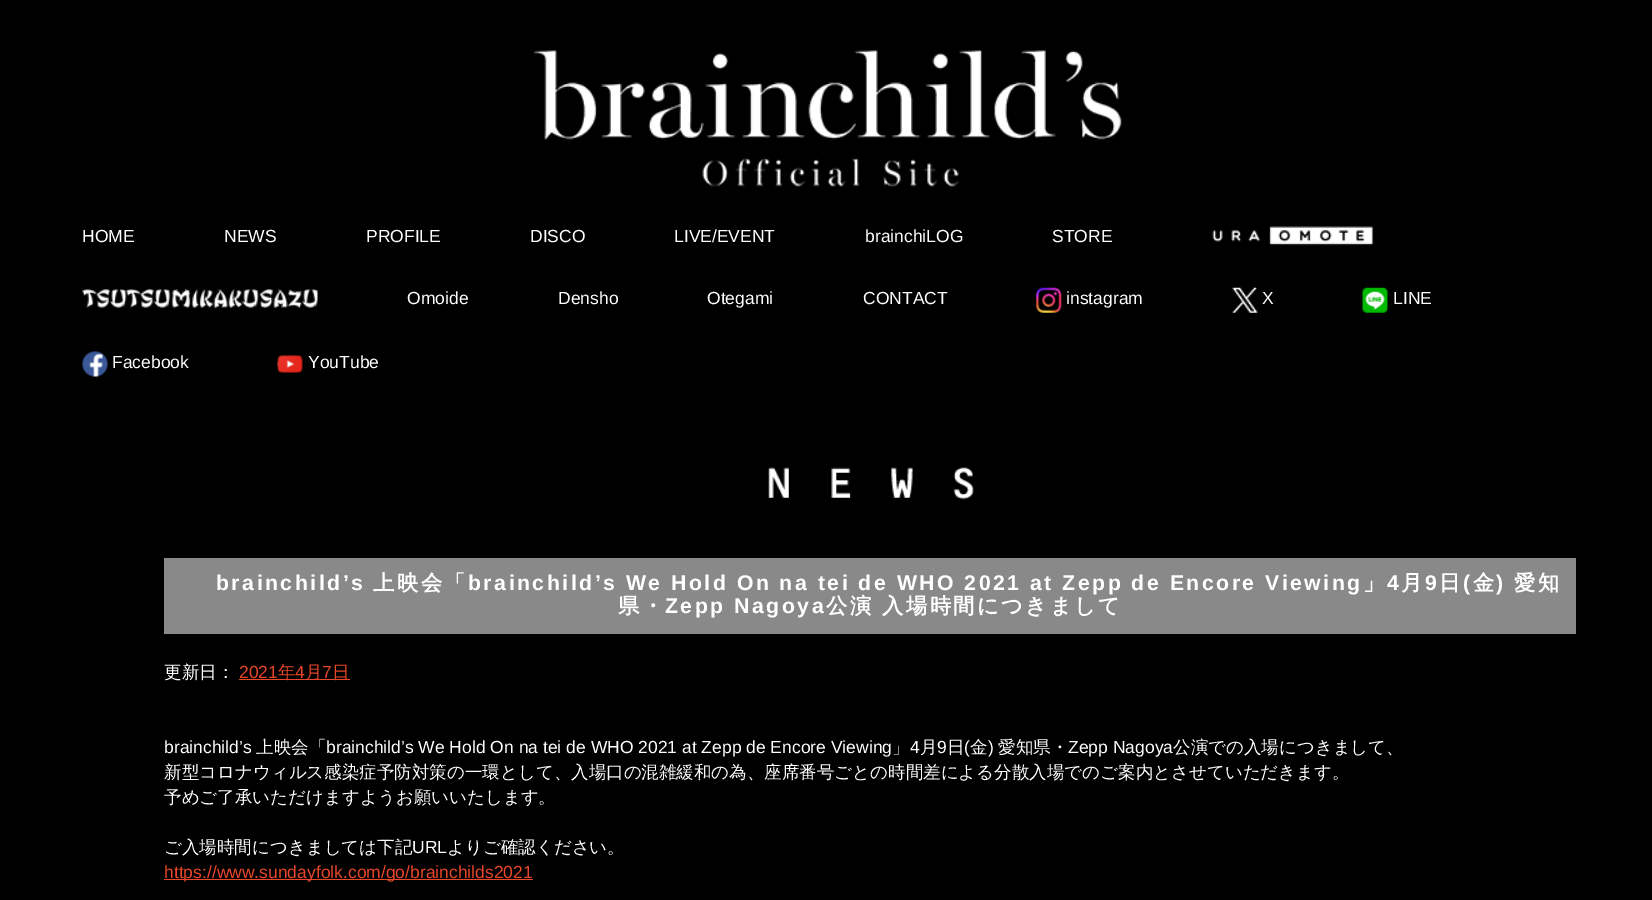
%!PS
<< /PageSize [1652 900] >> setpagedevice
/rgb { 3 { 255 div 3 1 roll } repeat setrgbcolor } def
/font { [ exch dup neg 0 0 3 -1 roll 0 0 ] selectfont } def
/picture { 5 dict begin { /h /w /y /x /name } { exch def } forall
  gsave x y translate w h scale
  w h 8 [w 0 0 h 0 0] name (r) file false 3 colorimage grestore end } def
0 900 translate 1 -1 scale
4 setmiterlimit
0 0 0 rgb
0 0 1652 900 rectfill
(img/1.rgb) 533 50 589 137 picture
(img/2.rgb) 1212 226 162 20 picture
(img/3.rgb) 82 289 236 19 picture
(img/4.rgb) 1036 287 26 26 picture
(img/5.rgb) 1232 287 26 26 picture
(img/6.rgb) 1362 287 26 26 picture
(img/7.rgb) 82 351 26 26 picture
(img/8.rgb) 277 355 26 18 picture
(img/9.rgb) 768 467 206 33 picture
[
  [164 558 1412 76 137 137 137]
  [239 679 111 1 233 71 42]
  [164 879 369 1 233 71 42]
] { aload pop rgb rectfill } forall
/LiberationSans-Regular 17.5 font
255 255 255 rgb
[
  [(HOME) 82 242]
  [(NEWS) 224 242]
  [(PROFILE) 366 242]
  [(DISCO) 530 242]
  [(LIVE/EVENT) 674 242]
  [(brainchiLOG) 865 242]
  [(STORE) 1052 242]
  [(Omoide) 407 304]
  [(Densho) 558 304]
  [(Otegami) 707 304]
  [(CONTACT) 863 304]
  [(instagram) 1066 304]
  [(X) 1262 304]
  [(LINE) 1393 304]
  [(Facebook) 112 368]
  [(YouTube) 308 368]
] { aload pop moveto show } forall
/LiberationSans-Bold 21.25 font
216 590 moveto 2.5 0 (brainchild’s) ashow
/WenQuanYiZenHei-Bold 21.25 font
373 590 moveto 2.5 0 (上映会「) ashow
/LiberationSans-Bold 21.25 font
468 590 moveto 2.5 0 (brainchild’s We Hold On na tei de WHO 2021 at Zepp de Encore Viewing) ashow
/WenQuanYiZenHei-Bold 21.25 font
1363 590 moveto 2.5 0 (」) ashow
/LiberationSans-Bold 21.25 font
1387 590 moveto 2.5 0 (4) ashow
/WenQuanYiZenHei-Bold 21.25 font
1401 590 moveto 2.5 0 (月) ashow
/LiberationSans-Bold 21.25 font
1425 590 moveto 2.5 0 (9) ashow
/WenQuanYiZenHei-Bold 21.25 font
1439 590 moveto 2.5 0 (日) ashow
/LiberationSans-Bold 21.25 font
1463 590 moveto 2.5 0 (\() ashow
/WenQuanYiZenHei-Bold 21.25 font
1473 590 moveto 2.5 0 (金) ashow
/LiberationSans-Bold 21.25 font
1496 590 moveto 2.5 0 (\)) ashow
/WenQuanYiZenHei-Bold 21.25 font
1514 590 moveto 2.5 0 (愛知) ashow
618 613 moveto 2.5 0 (県・) ashow
/LiberationSans-Bold 21.25 font
665 613 moveto 2.5 0 (Zepp Nagoya) ashow
/WenQuanYiZenHei-Bold 21.25 font
826 613 moveto 2.5 0 (公演) ashow
882 613 moveto 2.5 0 (入場時間につきまして) ashow
/WenQuanYiZenHei-Medium 17.5 font
164 678 moveto (更新日：) show
/LiberationSans-Regular 17.5 font
233 71 42 rgb
239 678 moveto (2021) show
/WenQuanYiZenHei-Medium 17.5 font
278 678 moveto (年) show
/LiberationSans-Regular 17.5 font
295 678 moveto (4) show
/WenQuanYiZenHei-Medium 17.5 font
305 678 moveto (月) show
/LiberationSans-Regular 17.5 font
322 678 moveto (7) show
/WenQuanYiZenHei-Medium 17.5 font
332 678 moveto (日) show
/LiberationSans-Regular 17.5 font
255 255 255 rgb
164 753 moveto (brainchild’s) show
/WenQuanYiZenHei-Medium 17.5 font
256 753 moveto (上映会「) show
/LiberationSans-Regular 17.5 font
326 753 moveto (brainchild’s We Hold On na tei de WHO 2021 at Zepp de Encore Viewing) show
/WenQuanYiZenHei-Medium 17.5 font
892 753 moveto (」) show
/LiberationSans-Regular 17.5 font
910 753 moveto (4) show
/WenQuanYiZenHei-Medium 17.5 font
920 753 moveto (月) show
/LiberationSans-Regular 17.5 font
937 753 moveto (9) show
/WenQuanYiZenHei-Medium 17.5 font
947 753 moveto (日) show
/LiberationSans-Regular 17.5 font
964 753 moveto (\() show
/WenQuanYiZenHei-Medium 17.5 font
970 753 moveto (金) show
/LiberationSans-Regular 17.5 font
988 753 moveto (\)) show
/WenQuanYiZenHei-Medium 17.5 font
998 753 moveto (愛知県・) show
/LiberationSans-Regular 17.5 font
1068 753 moveto (Zepp Nagoya) show
/WenQuanYiZenHei-Medium 17.5 font
[
  [(公演での入場につきまして、) 1173 753]
  [(新型コロナウィルス感染症予防対策の一環として、入場口の混雑緩和の為、座席番号ごとの時間差による分散入場でのご案内とさせていただきます。) 164 778]
  [(予めご了承いただけますようお願いいたします。) 164 803]
  [(ご入場時間につきましては下記) 164 853]
] { aload pop moveto show } forall
/LiberationSans-Regular 17.5 font
412 853 moveto (URL) show
/WenQuanYiZenHei-Medium 17.5 font
447 853 moveto (よりご確認ください。) show
/LiberationSans-Regular 17.5 font
233 71 42 rgb
164 878 moveto (https://www.sundayfolk.com/go/brainchilds2021) show
showpage
